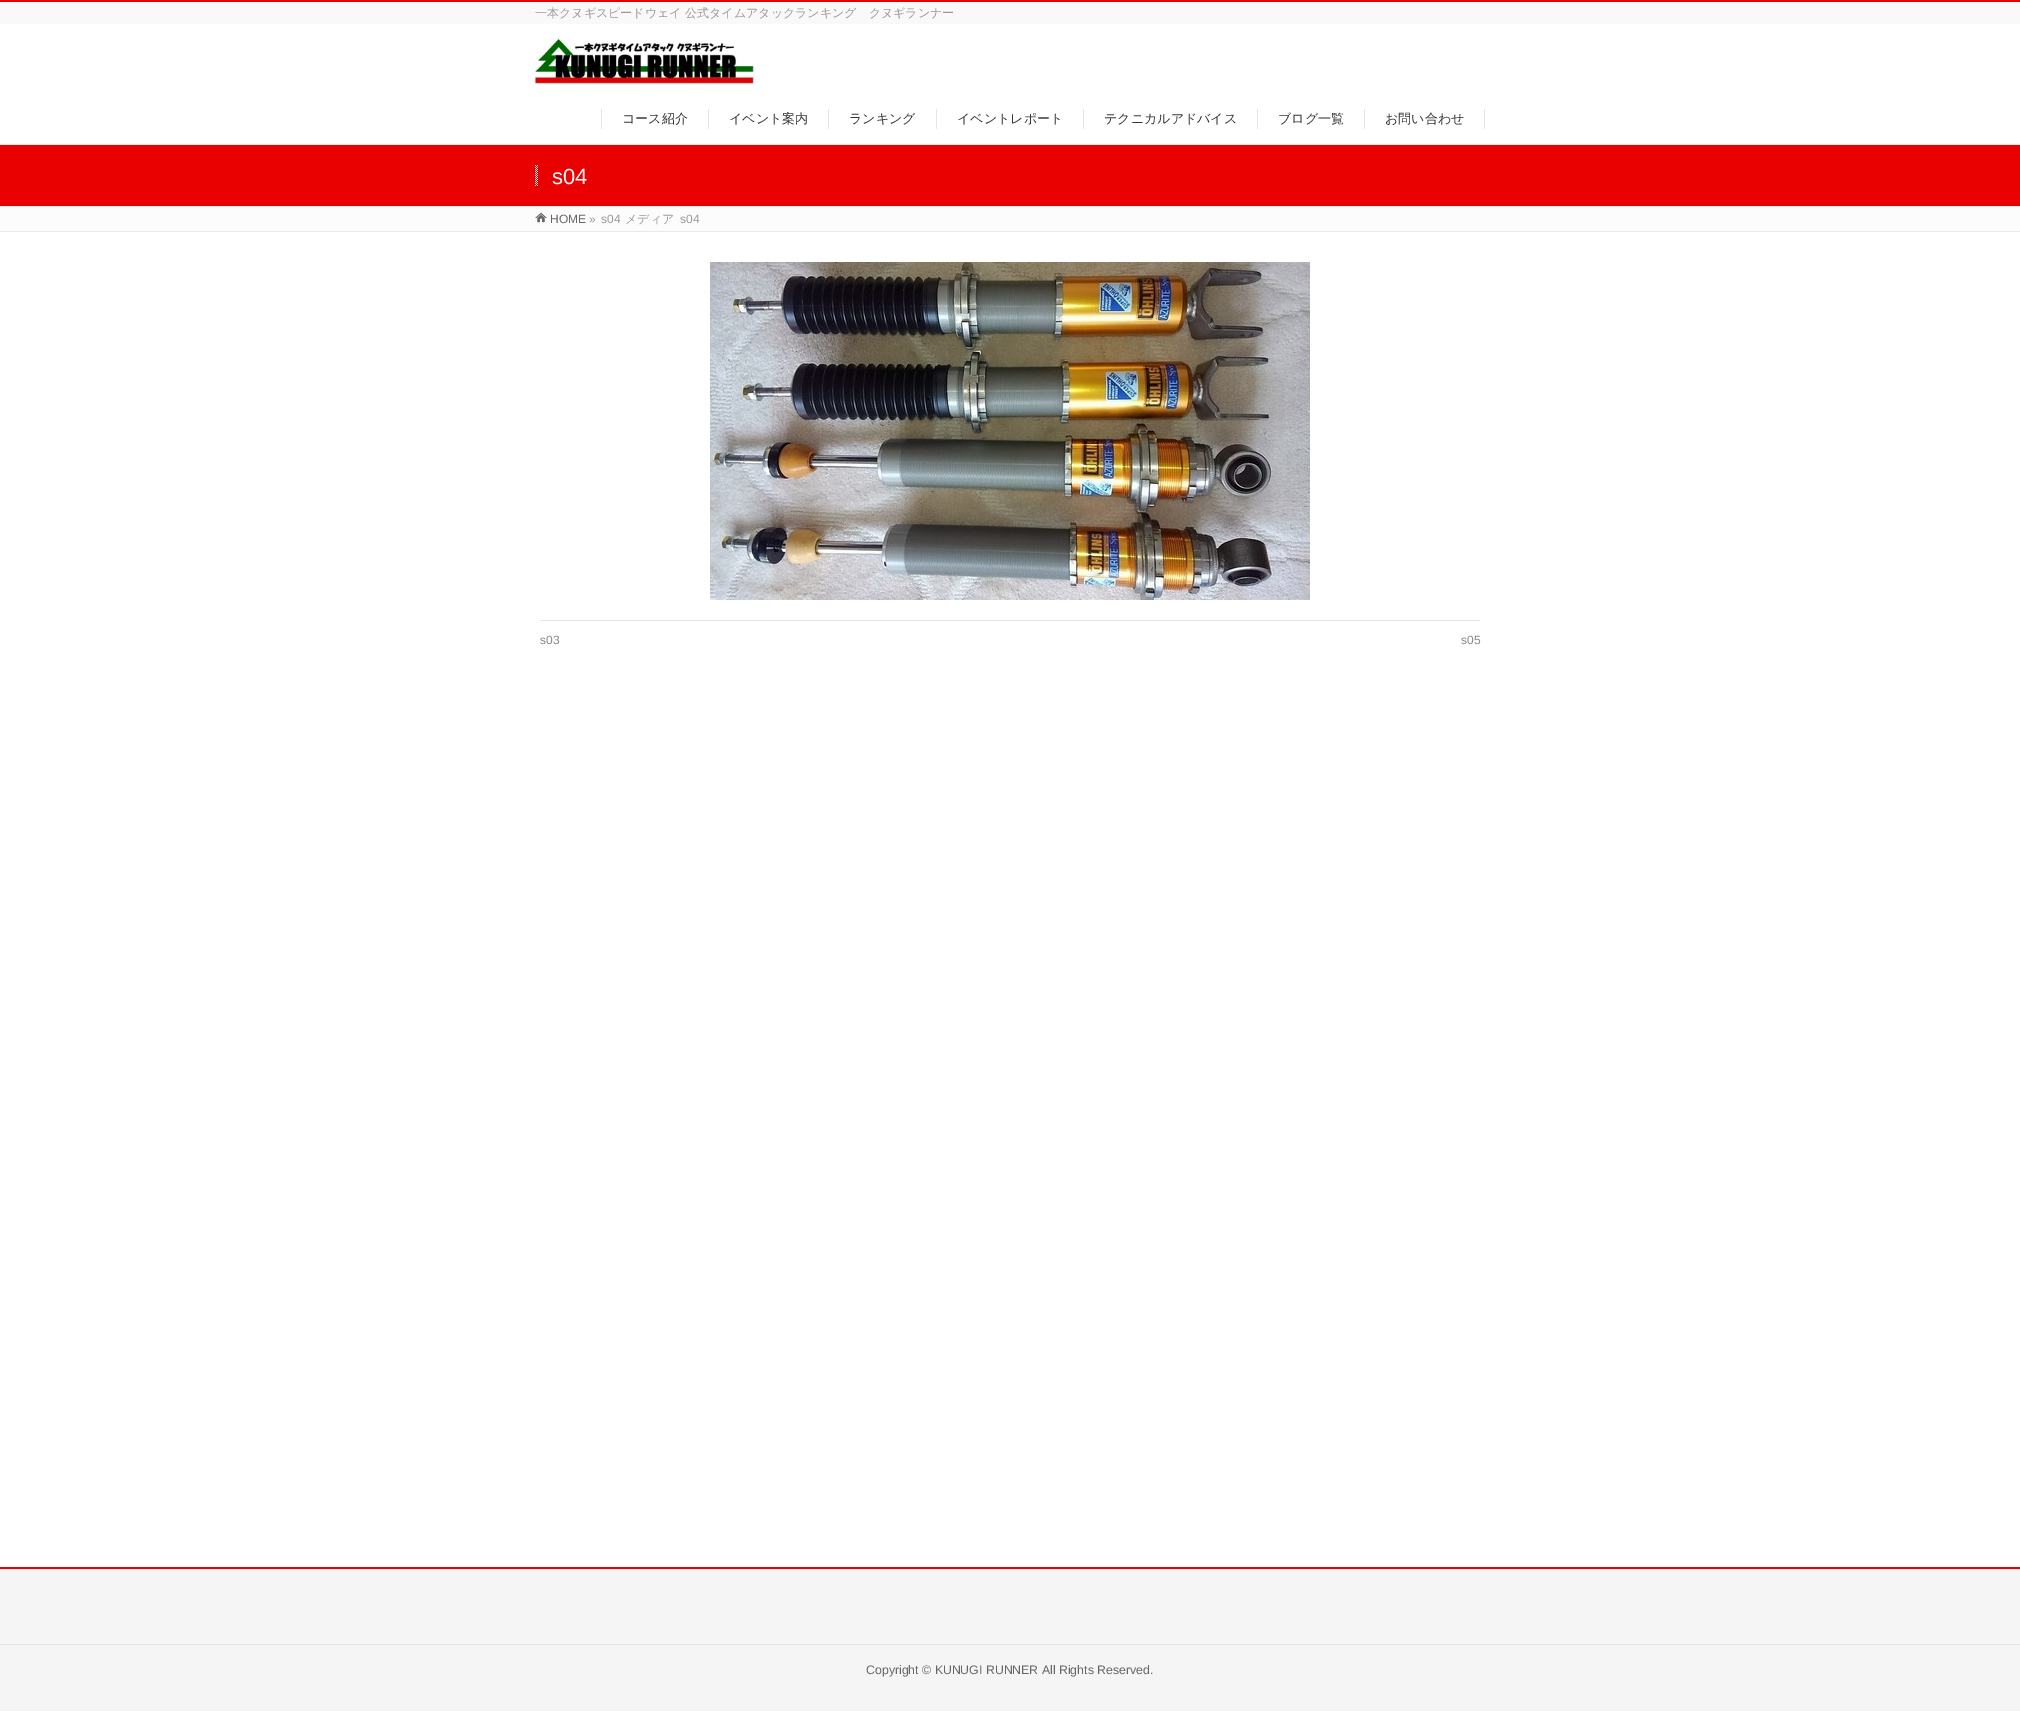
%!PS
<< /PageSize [2020 1712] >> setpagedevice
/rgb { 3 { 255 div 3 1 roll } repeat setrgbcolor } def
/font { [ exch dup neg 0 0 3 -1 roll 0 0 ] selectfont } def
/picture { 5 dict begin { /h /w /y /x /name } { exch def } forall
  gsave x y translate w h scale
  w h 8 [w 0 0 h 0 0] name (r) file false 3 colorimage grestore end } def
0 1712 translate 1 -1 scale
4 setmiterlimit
255 255 255 rgb
0 0 2020 1712 rectfill
249 249 249 rgb
0 2 2020 22 rectfill
233 0 0 rgb
0 0 2020 2 rectfill
(img/1.rgb) 535 39 219 45 picture
[
  [708 109 1 20 229 229 229]
  [601 109 1 20 229 229 229]
  [828 109 1 20 229 229 229]
  [936 109 1 20 229 229 229]
  [1083 109 1 20 229 229 229]
  [1257 109 1 20 229 229 229]
  [1364 109 1 20 229 229 229]
  [1484 109 1 20 229 229 229]
  [0 145 2020 61 233 0 0]
  [0 144 2020 1 233 233 233]
  [0 206 2020 1 233 233 233]
] { aload pop rgb rectfill } forall
(img/2.rgb) 535 165 3 21 picture
252 252 252 rgb
0 207 2020 24 rectfill
(img/3.rgb) 535 212 12 11 picture
233 233 233 rgb
0 231 2020 1 rectfill
(img/4.rgb) 710 262 600 338 picture
[
  [540 620 940 1 229 229 229]
  [0 1567 2020 2 233 0 0]
  [0 1569 2020 1 233 233 233]
  [0 1570 2020 74 245 245 245]
  [535 1610 1 1 255 255 255]
  [0 1645 2020 66 245 245 245]
  [0 1644 2020 1 229 229 229]
] { aload pop rgb rectfill } forall
/WenQuanYiZenHei-Medium 12 font
153 153 153 rgb
535 17 moveto (一本クヌギスピードウェイ 公式タイムアタックランキング　クヌギランナー) show
/WenQuanYiZenHei-Medium 13 font
51 51 51 rgb
[
  [(コース紹介) 622 123]
  [(イベント案内) 729 123]
  [(ランキング) 849 123]
  [(イベントレポート) 957 123]
  [(テクニカルアドバイス) 1104 123]
  [(ブログ一覧) 1278 123]
  [(お問い合わせ) 1385 123]
] { aload pop moveto show } forall
/LiberationSans-Regular 22 font
255 255 255 rgb
552 184 moveto (s04) show
/LiberationSans-Regular 12 font
102 102 102 rgb
550 223 moveto (HOME) show
153 153 153 rgb
589 223 moveto (») show
601 223 moveto (s04) show
/WenQuanYiZenHei-Medium 12 font
625 223 moveto (メディア) show
/LiberationSans-Regular 12 font
680 223 moveto (s04) show
136 136 136 rgb
540 644 moveto (s03) show
1461 644 moveto (s05) show
/LiberationSans-Regular 12.3 font
102 102 102 rgb
866 1674 moveto (Copyright © KUNUGI RUNNER All Rights Reserved.) show
showpage
